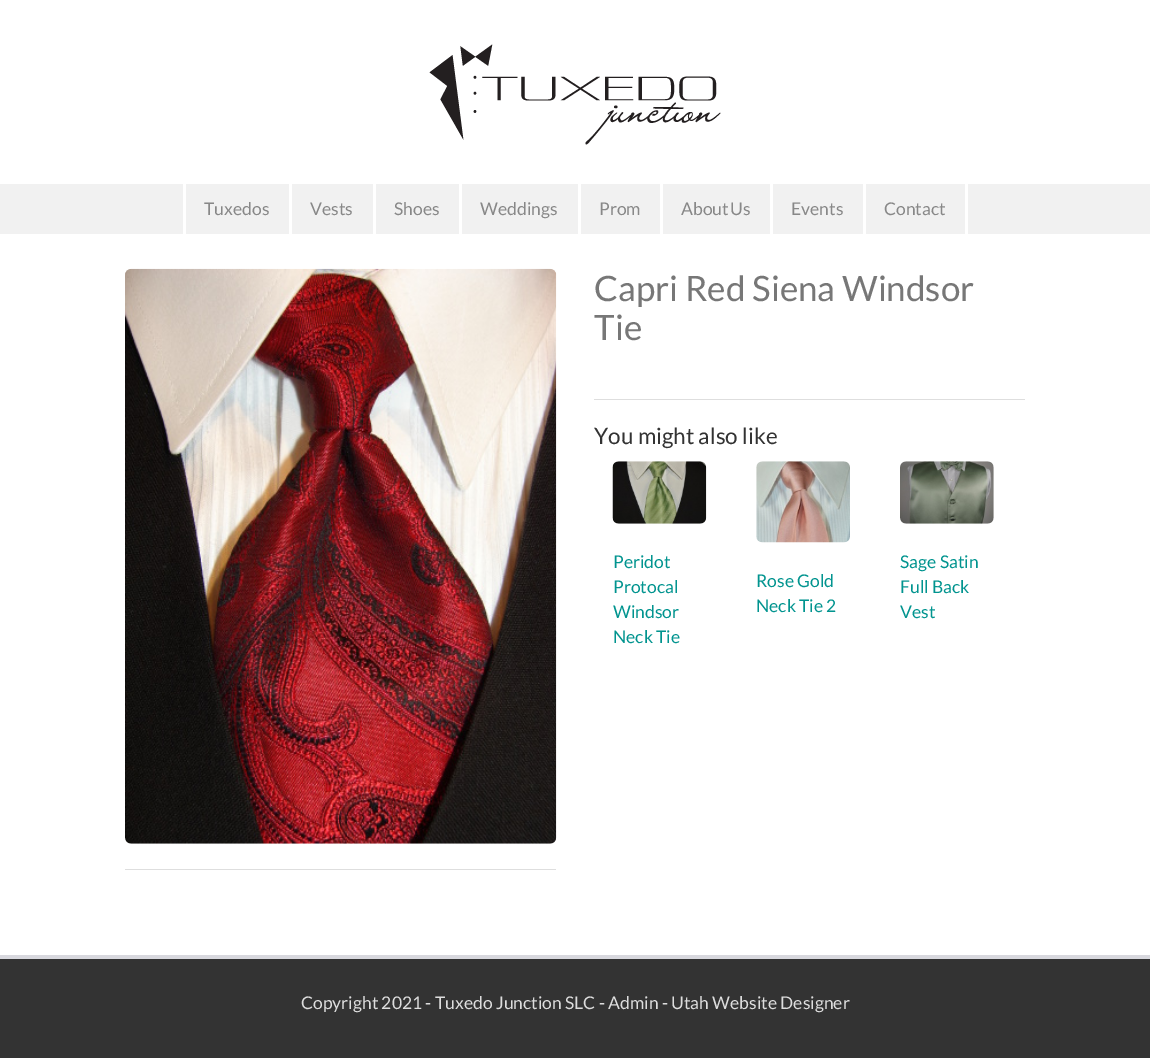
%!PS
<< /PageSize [1150 1058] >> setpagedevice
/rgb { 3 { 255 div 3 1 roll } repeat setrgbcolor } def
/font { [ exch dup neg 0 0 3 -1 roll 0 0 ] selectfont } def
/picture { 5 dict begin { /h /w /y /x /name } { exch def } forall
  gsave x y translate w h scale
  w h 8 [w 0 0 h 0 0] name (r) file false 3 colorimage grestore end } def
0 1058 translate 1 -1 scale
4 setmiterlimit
241 241 241 rgb
0 0 1150 1058 rectfill
255 255 255 rgb
0 0 1150 184 rectfill
(img/1.rgb) 429 44 292 101 picture
[
  [183 184 3 50 255 255 255]
  [289 184 3 50 255 255 255]
  [373 184 3 50 255 255 255]
  [459 184 3 50 255 255 255]
  [578 184 3 50 255 255 255]
  [660 184 3 50 255 255 255]
  [770 184 3 50 255 255 255]
  [965 184 3 50 255 255 255]
  [863 184 3 50 255 255 255]
  [0 234 1150 721 255 255 255]
] { aload pop rgb rectfill } forall
(img/2.rgb) 125 268 432 576 picture
222 222 222 rgb
125 869 431 1 rectfill
594 399 431 1 rectfill
(img/3.rgb) 612 461 95 63 picture
(img/4.rgb) 756 461 94 82 picture
(img/5.rgb) 900 461 94 63 picture
51 51 51 rgb
0 959 1150 99 rectfill
216 216 222 rgb
0 955 1150 4 rectfill
/Lato-Regular 17.5 font
136 136 136 rgb
[
  [(Tuxedos) 204 215]
  [(Vests) 310 215]
  [(Shoes) 394 215]
  [(Weddings) 480 215]
  [(Prom) 599 215]
] { aload pop moveto show } forall
681 215 moveto -2 0 32 (About Us) widthshow
791 215 moveto (Events) show
884 215 moveto (Contact) show
/Lato-Regular 35 font
119 119 119 rgb
594 301 moveto (Capri Red Siena Windsor) show
594 340 moveto (Tie) show
/Lato-Regular 22.5 font
51 51 51 rgb
594 444 moveto (You might also like) show
/Lato-Regular 17.5 font
1 148 143 rgb
[
  [(Peridot) 613 568]
  [(Protocal) 613 593]
  [(Windsor) 613 618]
  [(Neck Tie) 613 643]
  [(Rose Gold) 756 587]
  [(Neck Tie 2) 756 612]
  [(Sage Satin) 900 568]
  [(Full Back) 900 593]
  [(Vest) 900 618]
] { aload pop moveto show } forall
221 221 221 rgb
301 1009 moveto (Copyright 2021 - Tuxedo Junction SLC - Admin - Utah Website Designer) show
showpage
